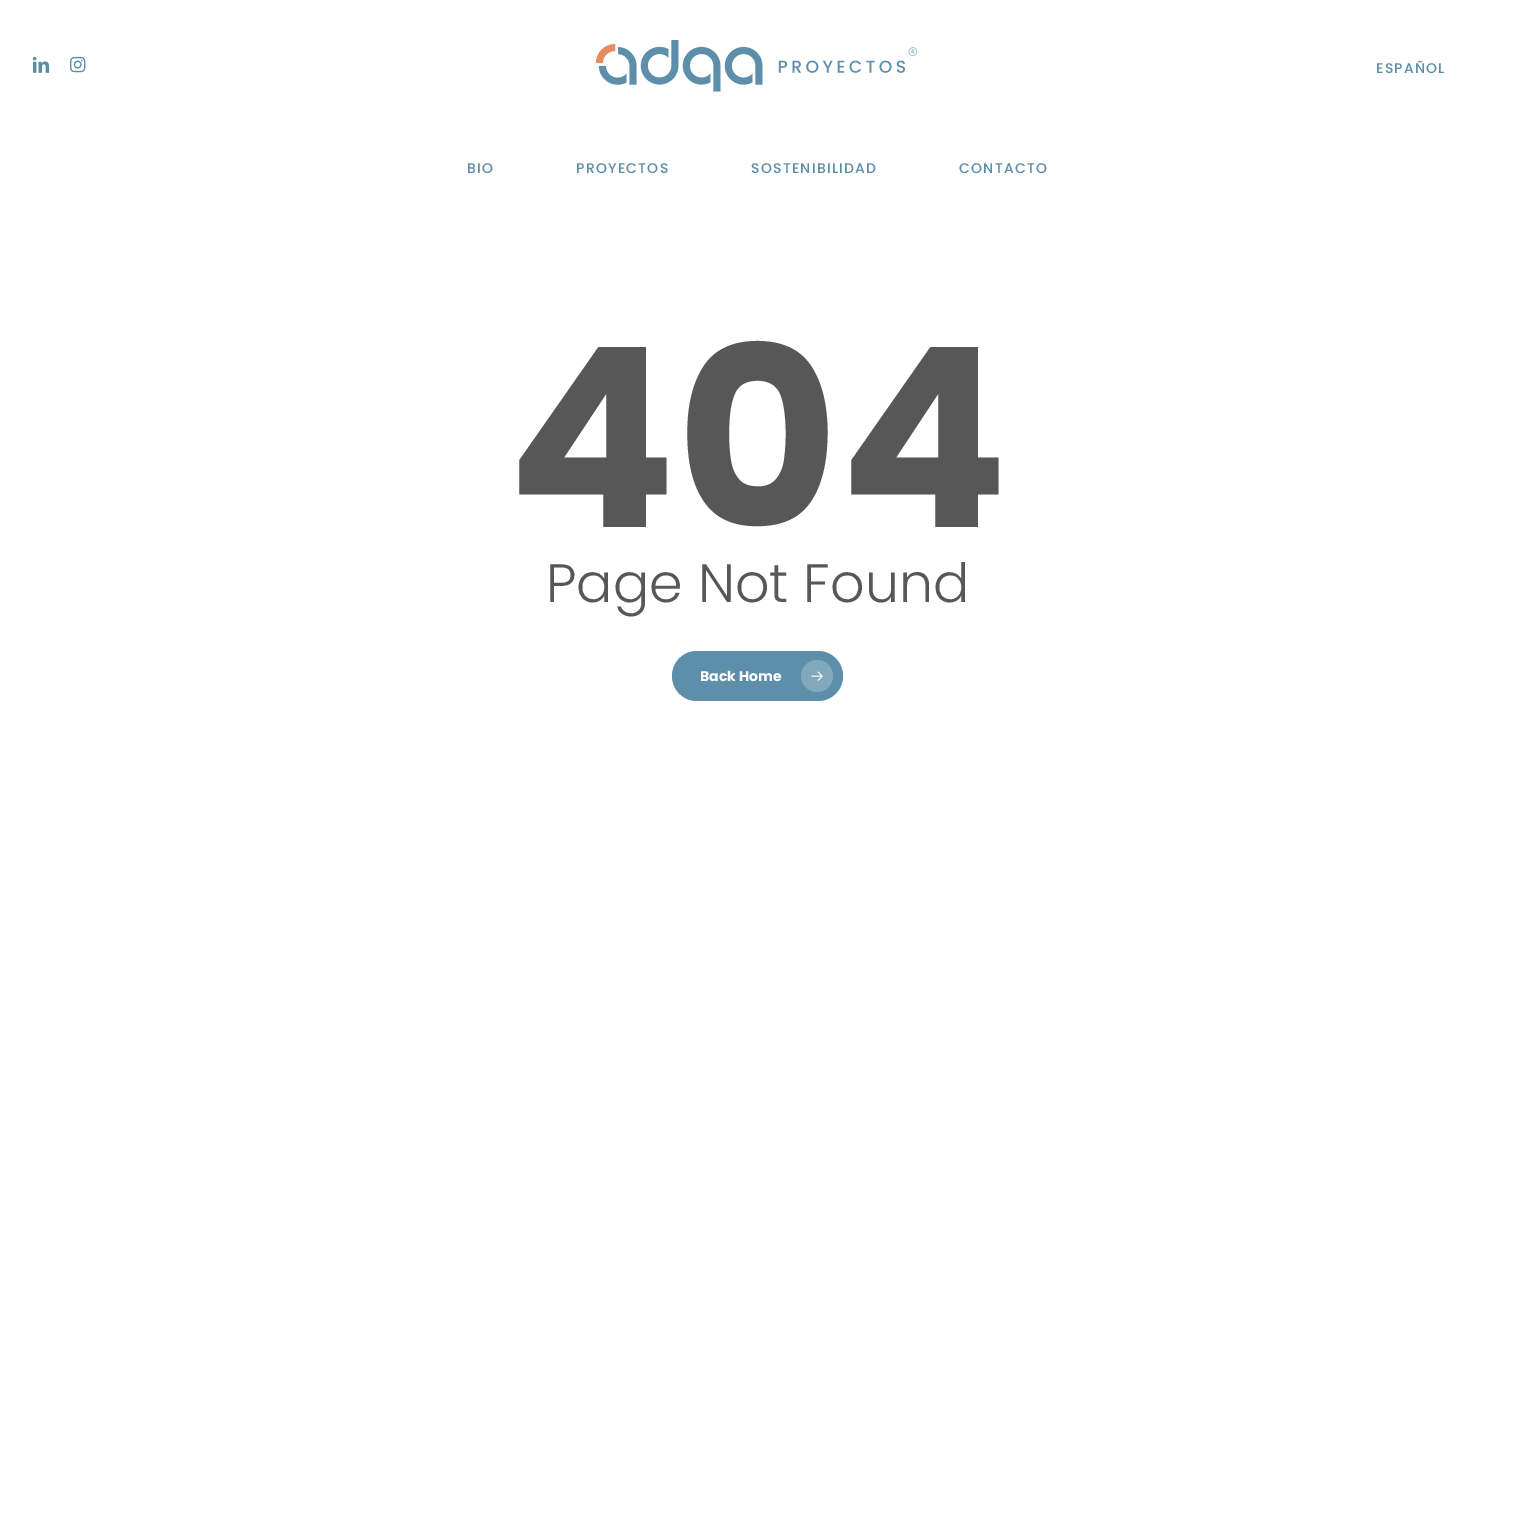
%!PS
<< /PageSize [1515 1529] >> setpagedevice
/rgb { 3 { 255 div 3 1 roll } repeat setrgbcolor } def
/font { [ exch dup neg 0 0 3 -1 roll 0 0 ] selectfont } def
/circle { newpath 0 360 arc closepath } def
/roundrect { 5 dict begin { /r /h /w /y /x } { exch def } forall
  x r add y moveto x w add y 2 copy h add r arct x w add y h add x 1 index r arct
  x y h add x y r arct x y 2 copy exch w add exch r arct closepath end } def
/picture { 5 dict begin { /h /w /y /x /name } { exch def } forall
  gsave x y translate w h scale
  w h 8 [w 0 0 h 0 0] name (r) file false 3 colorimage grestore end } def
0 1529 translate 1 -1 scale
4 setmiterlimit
255 255 255 rgb
0 0 1515 1529 rectfill
(img/1.rgb) 32 56 18 17 picture
(img/2.rgb) 70 56 16 17 picture
(img/3.rgb) 595 40 322 52 picture
93 143 170 rgb
672 651 171 50 25 roundrect fill
129 168 189 rgb
817 676 16 circle fill
(img/4.rgb) 811 671 12 10 picture
/Poppins-Medium 14 font
91 141 167 rgb
1376 73 moveto 1.25 0 (ESPAÑOL) ashow
467 173 moveto 1.25 0 (BIO) ashow
576 173 moveto 1.25 0 (PROYECTOS) ashow
751 173 moveto 1.25 0 (SOSTENIBILIDAD) ashow
959 173 moveto 1.25 0 (CONTACTO) ashow
/Poppins-Bold 250 font
87 87 87 rgb
507 527 moveto (404) show
/Poppins-Light 54 font
546 602 moveto (Page Not Found) show
/Poppins-Bold 14 font
255 255 255 rgb
700 681 moveto (Back Home) show
showpage
